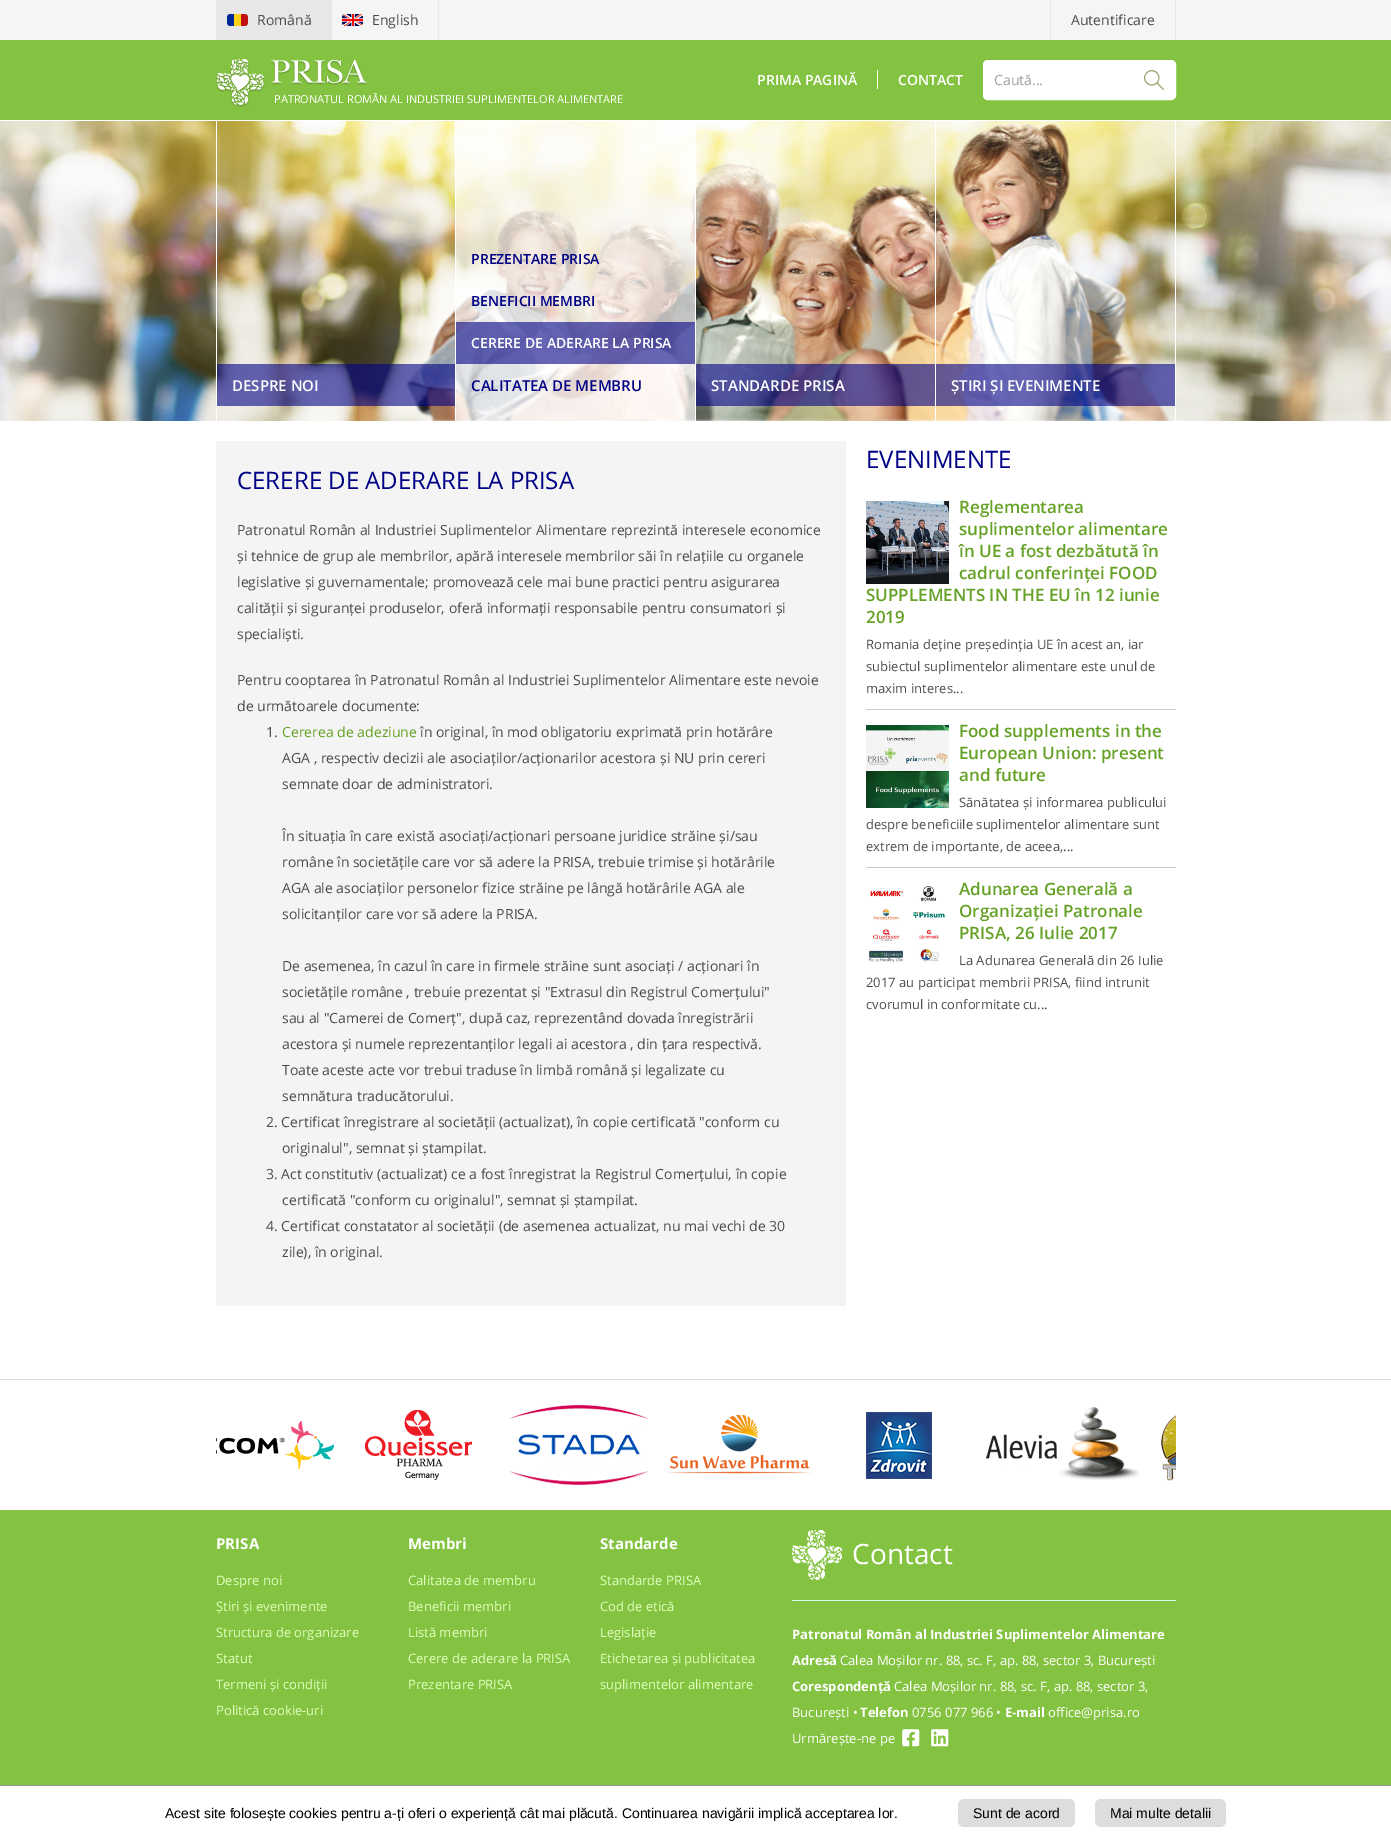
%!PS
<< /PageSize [1391 1841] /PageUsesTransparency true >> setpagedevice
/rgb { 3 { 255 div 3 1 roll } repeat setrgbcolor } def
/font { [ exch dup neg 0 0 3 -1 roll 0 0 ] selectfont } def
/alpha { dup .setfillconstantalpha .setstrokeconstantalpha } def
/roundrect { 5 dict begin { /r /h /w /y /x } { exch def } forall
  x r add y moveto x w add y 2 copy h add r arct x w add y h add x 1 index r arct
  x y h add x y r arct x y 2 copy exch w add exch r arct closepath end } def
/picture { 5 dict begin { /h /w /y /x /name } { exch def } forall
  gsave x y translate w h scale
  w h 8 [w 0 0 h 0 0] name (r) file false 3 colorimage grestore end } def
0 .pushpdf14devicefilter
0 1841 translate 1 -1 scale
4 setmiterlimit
255 255 255 rgb
0 0 1391 1841 rectfill
245 245 245 rgb
0 0 1391 40 rectfill
231 231 231 rgb
216 0 116 40 rectfill
(img/1.rgb) 227 14 21 12 picture
(img/2.rgb) 342 14 21 12 picture
[
  [438 0 1 40 231 231 231]
  [1050 0 1 40 231 231 231]
  [1175 0 1 40 231 231 231]
  [0 40 1391 80 132 195 65]
] { aload pop rgb rectfill } forall
(img/3.rgb) 216 59 152 48 picture
255 255 255 rgb
877 70 1 19 rectfill
983 60 193 40 5 roundrect fill
(img/4.rgb) 1144 70 20 20 picture
983.5 60.5 192 39 4.5 roundrect stroke
(img/5.rgb) 0 121 1391 300 picture
[
  [455 121 1 300 255 255 255]
  [216 121 1 300 255 255 255]
] { aload pop rgb rectfill } forall
0.6 alpha
[
  [217 364 238 42 0 0 133]
] { aload pop rgb rectfill } forall
0.7 alpha
[
  [456 121 239 300 255 255 255]
] { aload pop rgb rectfill } forall
1 alpha
[
  [695 121 1 300 255 255 255]
] { aload pop rgb rectfill } forall
0.6 alpha
[
  [456 322 239 42 0 0 133]
] { aload pop rgb rectfill } forall
1 alpha
[
  [935 121 1 300 255 255 255]
] { aload pop rgb rectfill } forall
0.6 alpha
[
  [696 364 239 42 0 0 133]
] { aload pop rgb rectfill } forall
1 alpha
[
  [1175 121 1 300 255 255 255]
] { aload pop rgb rectfill } forall
0.6 alpha
[
  [936 364 239 42 0 0 133]
] { aload pop rgb rectfill } forall
1 alpha
[
  [216 441 630 865 244 244 244]
  [866 709 310 1 204 204 204]
] { aload pop rgb rectfill } forall
(img/6.rgb) 866 501 83 83 picture
866 867 310 1 rectfill
(img/7.rgb) 866 725 83 83 picture
(img/8.rgb) 868 886 78 77 picture
219 219 219 rgb
0 1379 1391 1 rectfill
(img/9.rgb) 216 1421 118 48 picture
(img/10.rgb) 365 1410 107 70 picture
(img/11.rgb) 510 1405 138 80 picture
(img/12.rgb) 667 1415 145 59 picture
(img/13.rgb) 866 1412 66 67 picture
(img/14.rgb) 986 1407 153 73 picture
(img/15.rgb) 1161 1415 15 66 picture
132 195 65 rgb
0 1510 1391 275 rectfill
214 252 243 rgb
792 1600 384 1 rectfill
(img/16.rgb) 792 1530 50 50 picture
(img/17.rgb) 902 1729 18 18 picture
(img/18.rgb) 931 1729 18 18 picture
153 153 153 rgb
0 1785 1391 1 rectfill
221 221 221 rgb
958 1799 117 28 6 roundrect fill
1095 1799 131 28 6 roundrect fill
/OpenSans-Regular 14 font
76 76 76 rgb
[
  [(Română) 257 25]
  [(English) 372 25]
  [(Autentificare) 1071 25]
] { aload pop moveto show } forall
/OpenSans-SemiBold 14 font
255 255 255 rgb
757 85 moveto (PRIMA PAGINĂ) show
898 85 moveto (CONTACT) show
/OpenSans-Regular 14 font
159 159 159 rgb
994 85 moveto (Caută...) show
/OpenSans-Regular 11 font
255 255 255 rgb
274 103 moveto (PATRONATUL ROMÂN AL INDUSTRIEI SUPLIMENTELOR ALIMENTARE) show
/OpenSans-SemiBold 15 font
232 391 moveto (DESPRE NOI) show
/OpenSans-SemiBold 14 font
0 0 133 rgb
471 264 moveto (PREZENTARE PRISA) show
471 306 moveto (BENEFICII MEMBRI) show
255 255 255 rgb
471 348 moveto (CERERE DE ADERARE LA PRISA) show
/OpenSans-SemiBold 15 font
0 0 133 rgb
471 391 moveto (CALITATEA DE MEMBRU) show
255 255 255 rgb
711 391 moveto (STANDARDE PRISA) show
951 391 moveto (ȘTIRI ȘI EVENIMENTE) show
/OpenSans-Regular 24 font
0 0 133 rgb
237 489 moveto (CERERE DE ADERARE LA PRISA) show
/OpenSans-Regular 14 font
76 76 76 rgb
[
  [(Patronatul Român al Industriei Suplimentelor Alimentare reprezintă interesele economice) 237 535]
  [(și tehnice de grup ale membrilor, apără interesele membrilor săi în relațiile cu organele) 237 561]
  [(legislative și guvernamentale; promovează cele mai bune practici pentru asigurarea) 237 587]
  [(calității și siguranței produselor, oferă informații responsabile pentru consumatori și) 237 613]
  [(specialiști.) 237 639]
  [(Pentru cooptarea în Patronatul Român al Industriei Suplimentelor Alimentare este nevoie) 237 685]
  [(de următoarele documente:) 237 711]
  [(1.) 266 737]
] { aload pop moveto show } forall
101 161 38 rgb
282 737 moveto (Cererea de adeziune) show
76 76 76 rgb
[
  [(în original, în mod obligatoriu exprimată prin hotărâre) 420 737]
  [(AGA , respectiv decizii ale asociaților/acționarilor acestora și NU prin cereri) 282 763]
  [(semnate doar de administratori.) 282 789]
  [(În situația în care există asociați/acționari persoane juridice străine și/sau) 282 841]
  [(române în societățile care vor să adere la PRISA, trebuie trimise și hotărârile) 282 867]
  [(AGA ale asociaților personelor fizice străine pe lângă hotărârile AGA ale) 282 893]
  [(solicitanților care vor să adere la PRISA.) 282 919]
  [(De asemenea, în cazul în care in firmele străine sunt asociați / acționari în) 282 971]
  [(societățile române , trebuie prezentat și "Extrasul din Registrul Comerțului") 282 997]
  [(sau al "Camerei de Comerț", după caz, reprezentând dovada înregistrării) 282 1023]
  [(acestora și numele reprezentanților legali ai acestora , din țara respectivă.) 282 1049]
  [(Toate aceste acte vor trebui traduse în limbă română și legalizate cu) 282 1075]
  [(semnătura traducătorului.) 282 1101]
  [(2. Certificat înregistrare al societății \(actualizat\), în copie certificată "conform cu) 266 1127]
  [(originalul", semnat și ștampilat.) 282 1153]
  [(3. Act constitutiv \(actualizat\) ce a fost înregistrat la Registrul Comerțului, în copie) 266 1179]
  [(certificată "conform cu originalul", semnat și ștampilat.) 282 1205]
  [(4. Certificat constatator al societății \(de asemenea actualizat, nu mai vechi de 30) 266 1231]
  [(zile\), în original.) 282 1257]
] { aload pop moveto show } forall
/OpenSans-Regular 24 font
0 0 133 rgb
866 468 moveto (EVENIMENTE) show
/OpenSans-SemiBold 17 font
101 161 38 rgb
[
  [(Reglementarea) 959 513]
  [(suplimentelor alimentare) 959 535]
  [(în UE a fost dezbătută în) 959 557]
  [(cadrul conferinței FOOD) 959 579]
  [(SUPPLEMENTS IN THE EU în 12 iunie) 866 601]
  [(2019) 866 623]
] { aload pop moveto show } forall
/OpenSans-Regular 13 font
76 76 76 rgb
[
  [(Romania deține președinția UE în acest an, iar) 866 649]
  [(subiectul suplimentelor alimentare este unul de) 866 671]
  [(maxim interes...) 866 693]
] { aload pop moveto show } forall
/OpenSans-SemiBold 17 font
101 161 38 rgb
[
  [(Food supplements in the) 959 737]
  [(European Union: present) 959 759]
  [(and future) 959 781]
] { aload pop moveto show } forall
/OpenSans-Regular 13 font
76 76 76 rgb
[
  [(Sănătatea și informarea publicului) 959 807]
  [(despre beneficiile suplimentelor alimentare sunt) 866 829]
  [(extrem de importante, de aceea,...) 866 851]
] { aload pop moveto show } forall
/OpenSans-SemiBold 17 font
101 161 38 rgb
[
  [(Adunarea Generală a) 959 895]
  [(Organizației Patronale) 959 917]
  [(PRISA, 26 Iulie 2017) 959 939]
] { aload pop moveto show } forall
/OpenSans-Regular 13 font
76 76 76 rgb
[
  [(La Adunarea Generală din 26 Iulie) 959 965]
  [(2017 au participat membrii PRISA, fiind intrunit) 866 987]
  [(cvorumul in conformitate cu...) 866 1009]
] { aload pop moveto show } forall
/OpenSans-Bold 15 font
255 255 255 rgb
216 1549 moveto (PRISA) show
/OpenSans-Regular 13 font
223 255 190 rgb
[
  [(Despre noi) 216 1585]
  [(Știri și evenimente) 216 1611]
  [(Structura de organizare) 216 1637]
  [(Statut) 216 1663]
  [(Termeni și condiții) 216 1689]
  [(Politică cookie-uri) 216 1715]
] { aload pop moveto show } forall
/OpenSans-Bold 15 font
255 255 255 rgb
408 1549 moveto (Membri) show
/OpenSans-Regular 13 font
223 255 190 rgb
[
  [(Calitatea de membru) 408 1585]
  [(Beneficii membri) 408 1611]
  [(Listă membri) 408 1637]
  [(Cerere de aderare la PRISA) 408 1663]
  [(Prezentare PRISA) 408 1689]
] { aload pop moveto show } forall
/OpenSans-Bold 15 font
255 255 255 rgb
600 1549 moveto (Standarde) show
/OpenSans-Regular 13 font
223 255 190 rgb
[
  [(Standarde PRISA) 600 1585]
  [(Cod de etică) 600 1611]
  [(Legislație) 600 1637]
  [(Etichetarea și publicitatea) 600 1663]
  [(suplimentelor alimentare) 600 1689]
] { aload pop moveto show } forall
/OpenSans-Regular 28 font
255 255 255 rgb
852 1564 moveto (Contact) show
/OpenSans-Bold 13 font
792 1639 moveto (Patronatul Român al Industriei Suplimentelor Alimentare) show
792 1665 moveto (Adresă) show
/OpenSans-Regular 13 font
840 1665 moveto (Calea Moșilor nr. 88, sc. F, ap. 88, sector 3, București) show
/OpenSans-Bold 13 font
792 1691 moveto (Corespondență) show
/OpenSans-Regular 13 font
894 1691 moveto (Calea Moșilor nr. 88, sc. F, ap. 88, sector 3,) show
792 1717 moveto (București •) show
/OpenSans-Bold 13 font
860 1717 moveto (Telefon) show
/OpenSans-Regular 13 font
912 1717 moveto (0756 077 966 •) show
/OpenSans-Bold 13 font
1005 1717 moveto (E-mail) show
/OpenSans-Regular 13 font
1048 1717 moveto (office@prisa.ro) show
792 1743 moveto (Urmărește-ne pe) show
/LiberationSans-Regular 14 font
0 0 0 rgb
[
  [(Acest site folosește cookies pentru a-ți oferi o experiență cât mai plăcută. Continuarea navigării implică acceptarea lor.) 165 1818]
  [(Sunt de acord) 973 1818]
  [(Mai multe detalii) 1110 1818]
] { aload pop moveto show } forall
.poppdf14devicefilter showpage
